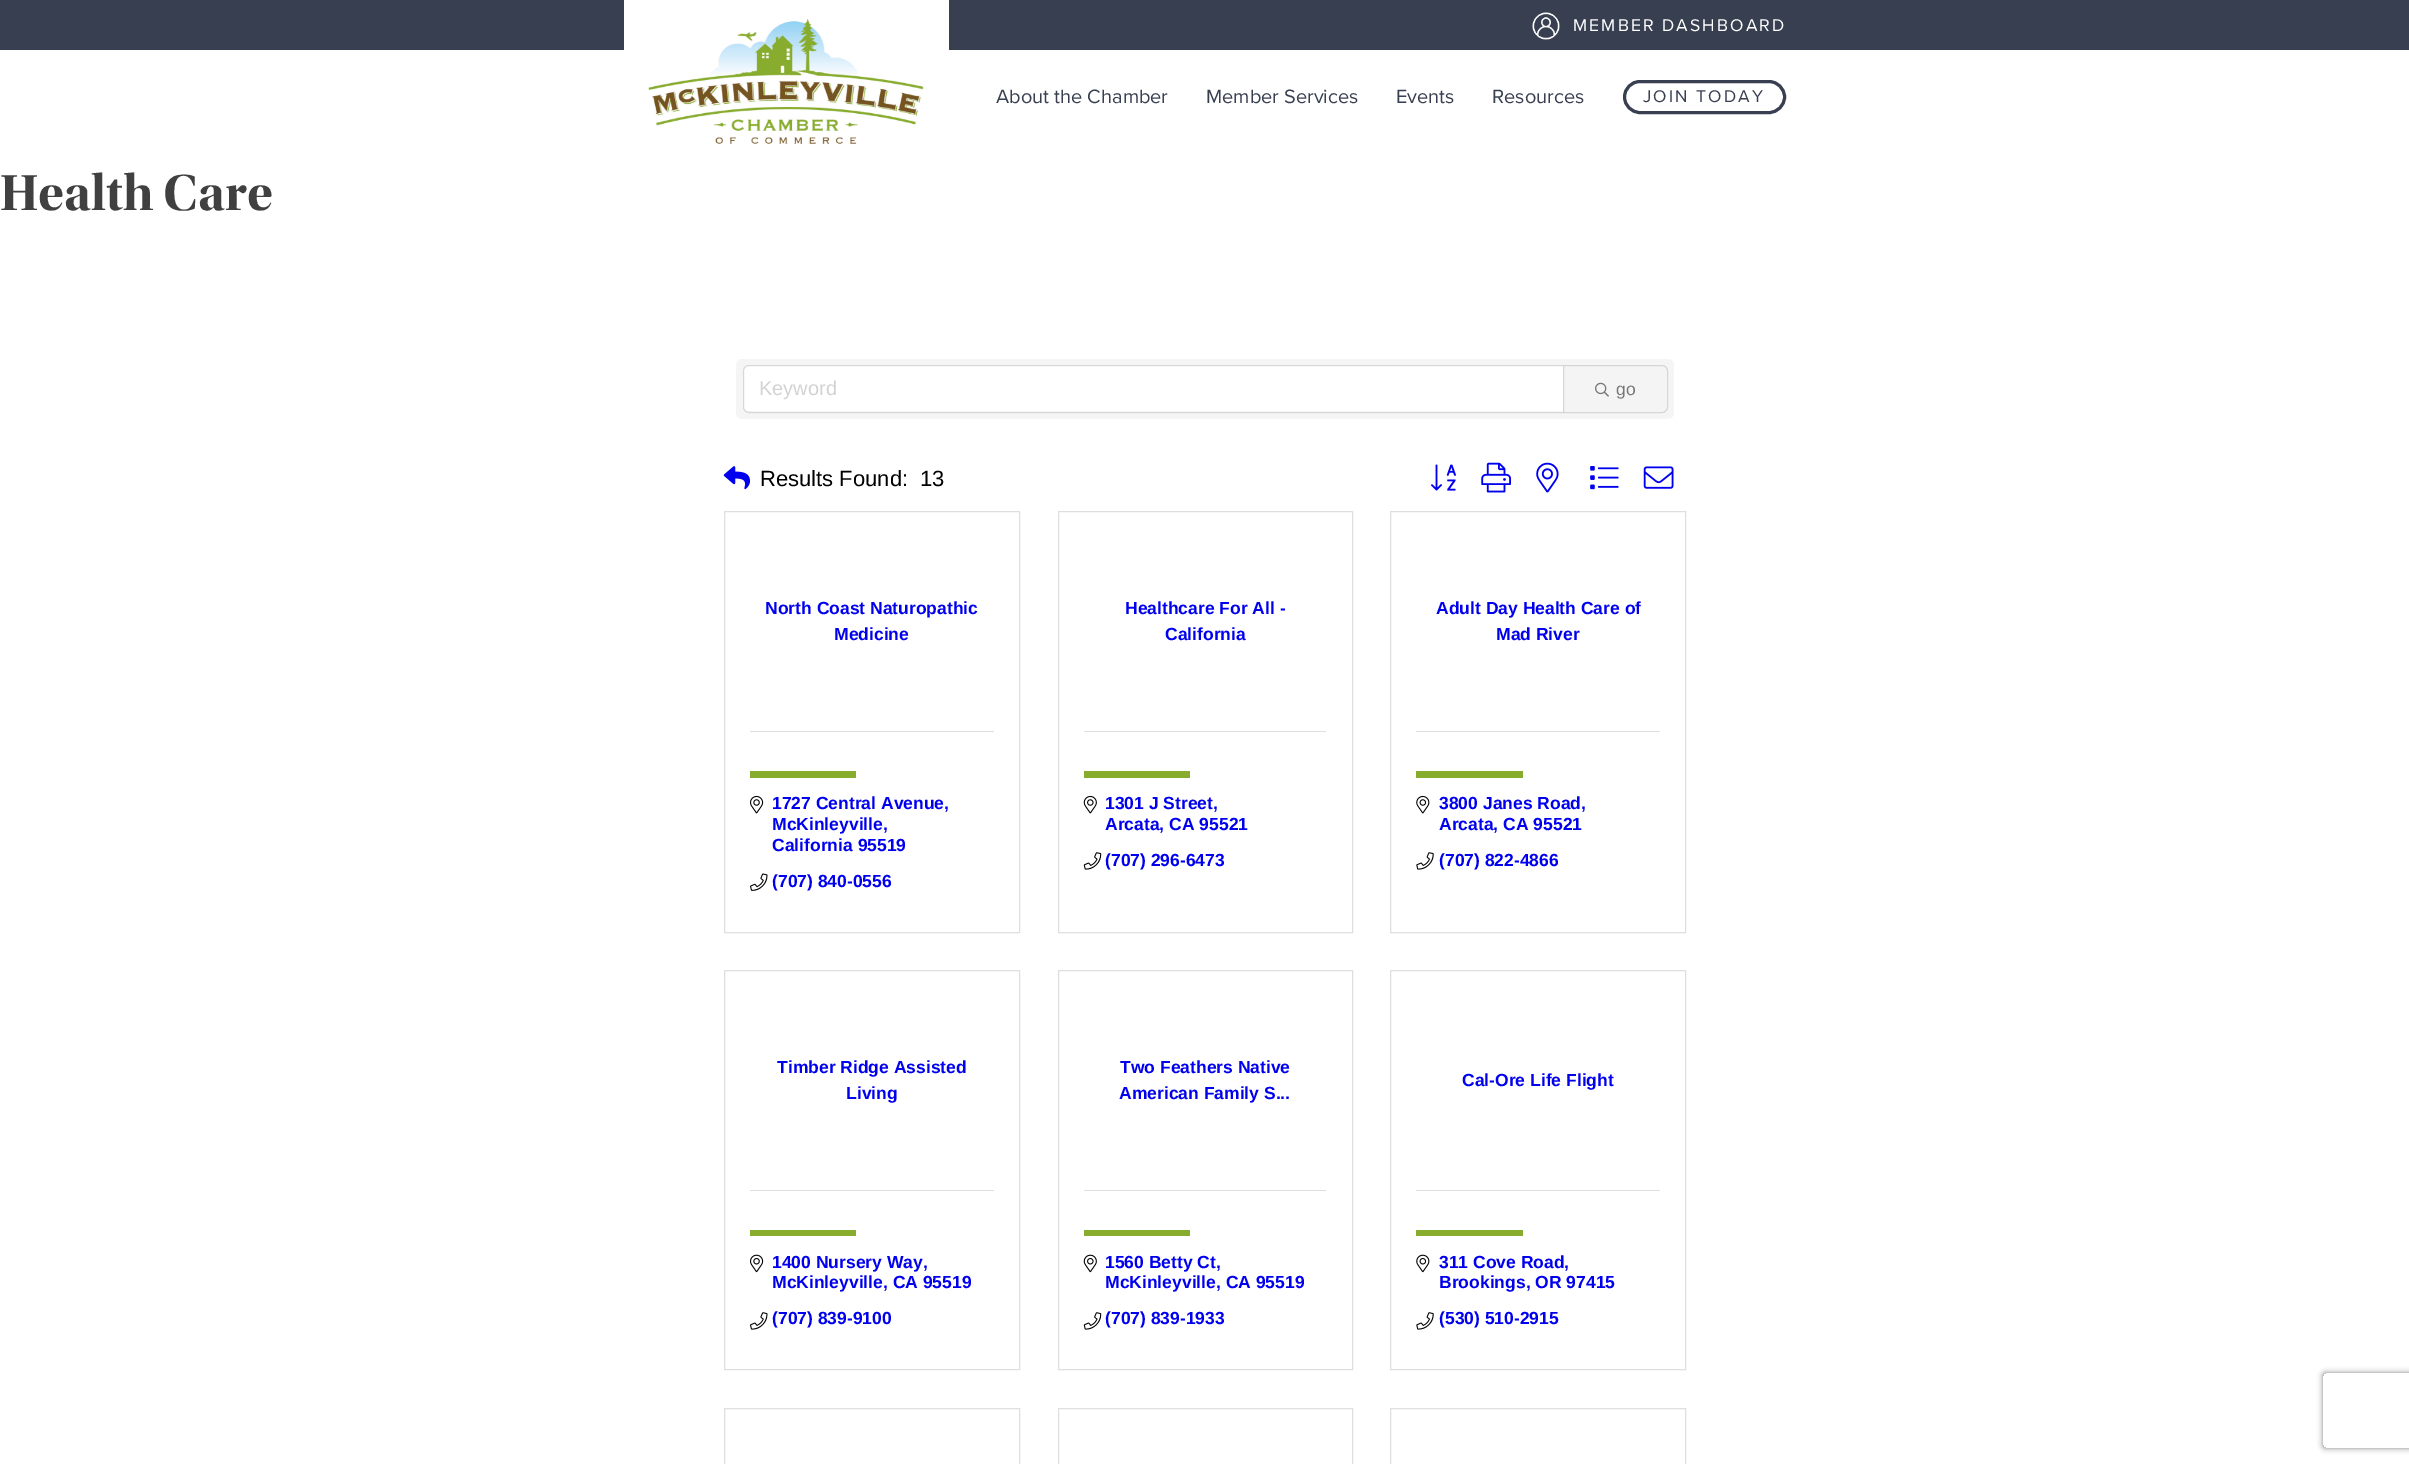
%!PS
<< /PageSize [2409 1464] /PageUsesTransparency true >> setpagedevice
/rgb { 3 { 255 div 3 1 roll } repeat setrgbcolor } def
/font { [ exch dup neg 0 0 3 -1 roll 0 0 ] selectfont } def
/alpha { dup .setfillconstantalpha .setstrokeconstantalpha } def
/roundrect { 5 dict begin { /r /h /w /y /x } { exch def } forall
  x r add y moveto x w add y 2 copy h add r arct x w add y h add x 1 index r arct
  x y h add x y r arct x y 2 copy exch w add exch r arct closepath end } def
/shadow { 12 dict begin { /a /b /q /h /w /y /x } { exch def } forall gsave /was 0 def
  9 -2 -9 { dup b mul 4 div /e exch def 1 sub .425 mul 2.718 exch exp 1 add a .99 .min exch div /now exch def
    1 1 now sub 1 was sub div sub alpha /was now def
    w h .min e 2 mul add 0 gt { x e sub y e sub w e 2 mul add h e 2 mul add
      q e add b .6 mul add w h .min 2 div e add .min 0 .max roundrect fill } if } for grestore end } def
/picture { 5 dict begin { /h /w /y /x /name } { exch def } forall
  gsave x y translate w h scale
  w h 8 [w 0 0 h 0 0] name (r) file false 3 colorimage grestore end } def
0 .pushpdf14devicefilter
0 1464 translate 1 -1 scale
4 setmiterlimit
255 255 255 rgb
0 0 2409 1464 rectfill
55 63 81 rgb
0 0 2409 50 rectfill
255 255 255 rgb
624 0 325 50 rectfill
(img/1.rgb) 648 18 276 126 picture
(img/2.rgb) 1532 12 28 28 picture
55 63 81 rgb
3 setlinewidth
1624.5 81.5 160 31 15.5 roundrect stroke
245 245 245 rgb
736 359 938 60 6 roundrect fill
255 255 255 rgb
749 366 moveto 1563 366 lineto 1563 411 lineto 749 411 lineto 746 411 744 409 744 406 curveto 744 371 lineto 744 368 746 366 749 366 curveto closepath fill
0.12 alpha
0 0 0 rgb
1 setlinewidth
749 365.5 moveto 1563.5 365.5 lineto 1563.5 412.5 lineto 749 412.5 lineto 746 412.5 743.5 410 743.5 407 curveto 743.5 371 lineto 743.5 368 746 365.5 749 365.5 curveto closepath stroke
1 alpha
244 244 244 rgb
1563.5 365.5 moveto 1662 365.5 lineto 1665 365.5 1667.5 368 1667.5 371 curveto 1667.5 407 lineto 1667.5 410 1665 412.5 1662 412.5 curveto 1563.5 412.5 lineto closepath gsave fill grestore
214 214 214 rgb
stroke
(img/3.rgb) 1595 382 14 15 picture
(img/4.rgb) 723 466 27 24 picture
(img/5.rgb) 1431 464 25 27 picture
(img/6.rgb) 1481 462 30 31 picture
(img/7.rgb) 1536 462 23 31 picture
(img/8.rgb) 1590 466 29 24 picture
(img/9.rgb) 1643 466 31 23 picture
223 223 223 rgb
724.5 511.5 295 421 rectstroke
750 731 244 1 rectfill
136 172 46 rgb
750 771 106 7 rectfill
(img/10.rgb) 750 795 14 19 picture
(img/11.rgb) 750 873 18 18 picture
223 223 223 rgb
1058.5 511.5 294 421 rectstroke
1084 731 242 1 rectfill
136 172 46 rgb
1084 771 106 7 rectfill
(img/12.rgb) 1083 795 14 19 picture
(img/13.rgb) 1083 852 19 18 picture
223 223 223 rgb
1390.5 511.5 295 421 rectstroke
1416 731 244 1 rectfill
136 172 46 rgb
1416 771 107 7 rectfill
(img/14.rgb) 1416 795 14 19 picture
(img/15.rgb) 1416 852 18 18 picture
223 223 223 rgb
724.5 970.5 295 399 rectstroke
750 1190 244 1 rectfill
136 172 46 rgb
750 1230 106 6 rectfill
(img/16.rgb) 750 1254 14 19 picture
(img/17.rgb) 750 1312 18 18 picture
223 223 223 rgb
1058.5 970.5 294 399 rectstroke
1084 1190 242 1 rectfill
136 172 46 rgb
1084 1230 106 6 rectfill
(img/18.rgb) 1083 1254 14 19 picture
(img/13.rgb) 1083 1312 19 18 picture
223 223 223 rgb
1390.5 970.5 295 399 rectstroke
1416 1190 244 1 rectfill
136 172 46 rgb
1416 1230 107 6 rectfill
(img/19.rgb) 1416 1254 14 19 picture
(img/15.rgb) 1416 1312 18 18 picture
223 223 223 rgb
724.5 1408.5 295 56 rectstroke
1058.5 1408.5 294 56 rectstroke
1390.5 1408.5 295 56 rectstroke
gsave
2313 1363 moveto 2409 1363 lineto 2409 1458 lineto 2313 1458 lineto closepath 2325.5 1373 moveto 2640.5 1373 lineto 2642 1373 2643 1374 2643 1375.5 curveto 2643 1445.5 lineto 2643 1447 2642 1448 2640.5 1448 curveto 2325.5 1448 lineto 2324 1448 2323 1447 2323 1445.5 curveto 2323 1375.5 lineto 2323 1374 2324 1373 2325.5 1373 curveto closepath eoclip newpath
128 128 128 rgb
2323 1373 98 75 2.5 3 1 shadow
grestore
/ProximaNova-Regular 17.5 font
255 255 255 rgb
1573 31 moveto 2.1 0 (MEMBER DASHBOARD) ashow
/ProximaNova-Regular 20 font
55 63 81 rgb
[
  [(About the Chamber) 996 103]
  [(Member Services) 1206 103]
  [(Events) 1396 103]
  [(Resources) 1492 103]
] { aload pop moveto show } forall
/ProximaNova-Regular 17.5 font
1643 102 moveto 2.1 0 (JOIN TODAY) ashow
/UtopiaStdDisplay-Bold 52.5 font
64 64 64 rgb
0 210 moveto (Health Care) show
/LiberationSans-Regular 20 font
210 210 210 rgb
759 395 moveto (Keyword) show
/LiberationSans-Regular 17.5 font
119 119 119 rgb
1616 395 moveto (go) show
/LiberationSans-Regular 22 font
0 0 0 rgb
760 486 moveto (Results Found:) show
920 486 moveto (13) show
/LiberationSans-Bold 17.5 font
0 0 238 rgb
[
  [(North Coast Naturopathic) 765 614]
  [(Medicine) 834 640]
  [(1727 Central Avenue,) 772 809]
  [(McKinleyville,) 772 830]
  [(California 95519) 772 851]
  [(\(707\) 840-0556) 772 887]
  [(Healthcare For All -) 1125 614]
  [(California) 1165 640]
  [(1301 J Street,) 1105 809]
  [(Arcata, CA 95521) 1105 830]
  [(\(707\) 296-6473) 1105 866]
  [(Adult Day Health Care of) 1436 614]
  [(Mad River) 1496 640]
  [(3800 Janes Road,) 1439 809]
  [(Arcata, CA 95521) 1439 830]
  [(\(707\) 822-4866) 1439 866]
  [(Timber Ridge Assisted) 777 1073]
  [(Living) 846 1099]
  [(1400 Nursery Way,) 772 1268]
  [(McKinleyville, CA 95519) 772 1288]
  [(\(707\) 839-9100) 772 1324]
  [(Two Feathers Native) 1120 1073]
  [(American Family S...) 1119 1099]
  [(1560 Betty Ct,) 1105 1268]
  [(McKinleyville, CA 95519) 1105 1288]
  [(\(707\) 839-1933) 1105 1324]
  [(Cal-Ore Life Flight) 1462 1086]
  [(311 Cove Road,) 1439 1268]
  [(Brookings, OR 97415) 1439 1288]
  [(\(530\) 510-2915) 1439 1324]
] { aload pop moveto show } forall
.poppdf14devicefilter showpage
